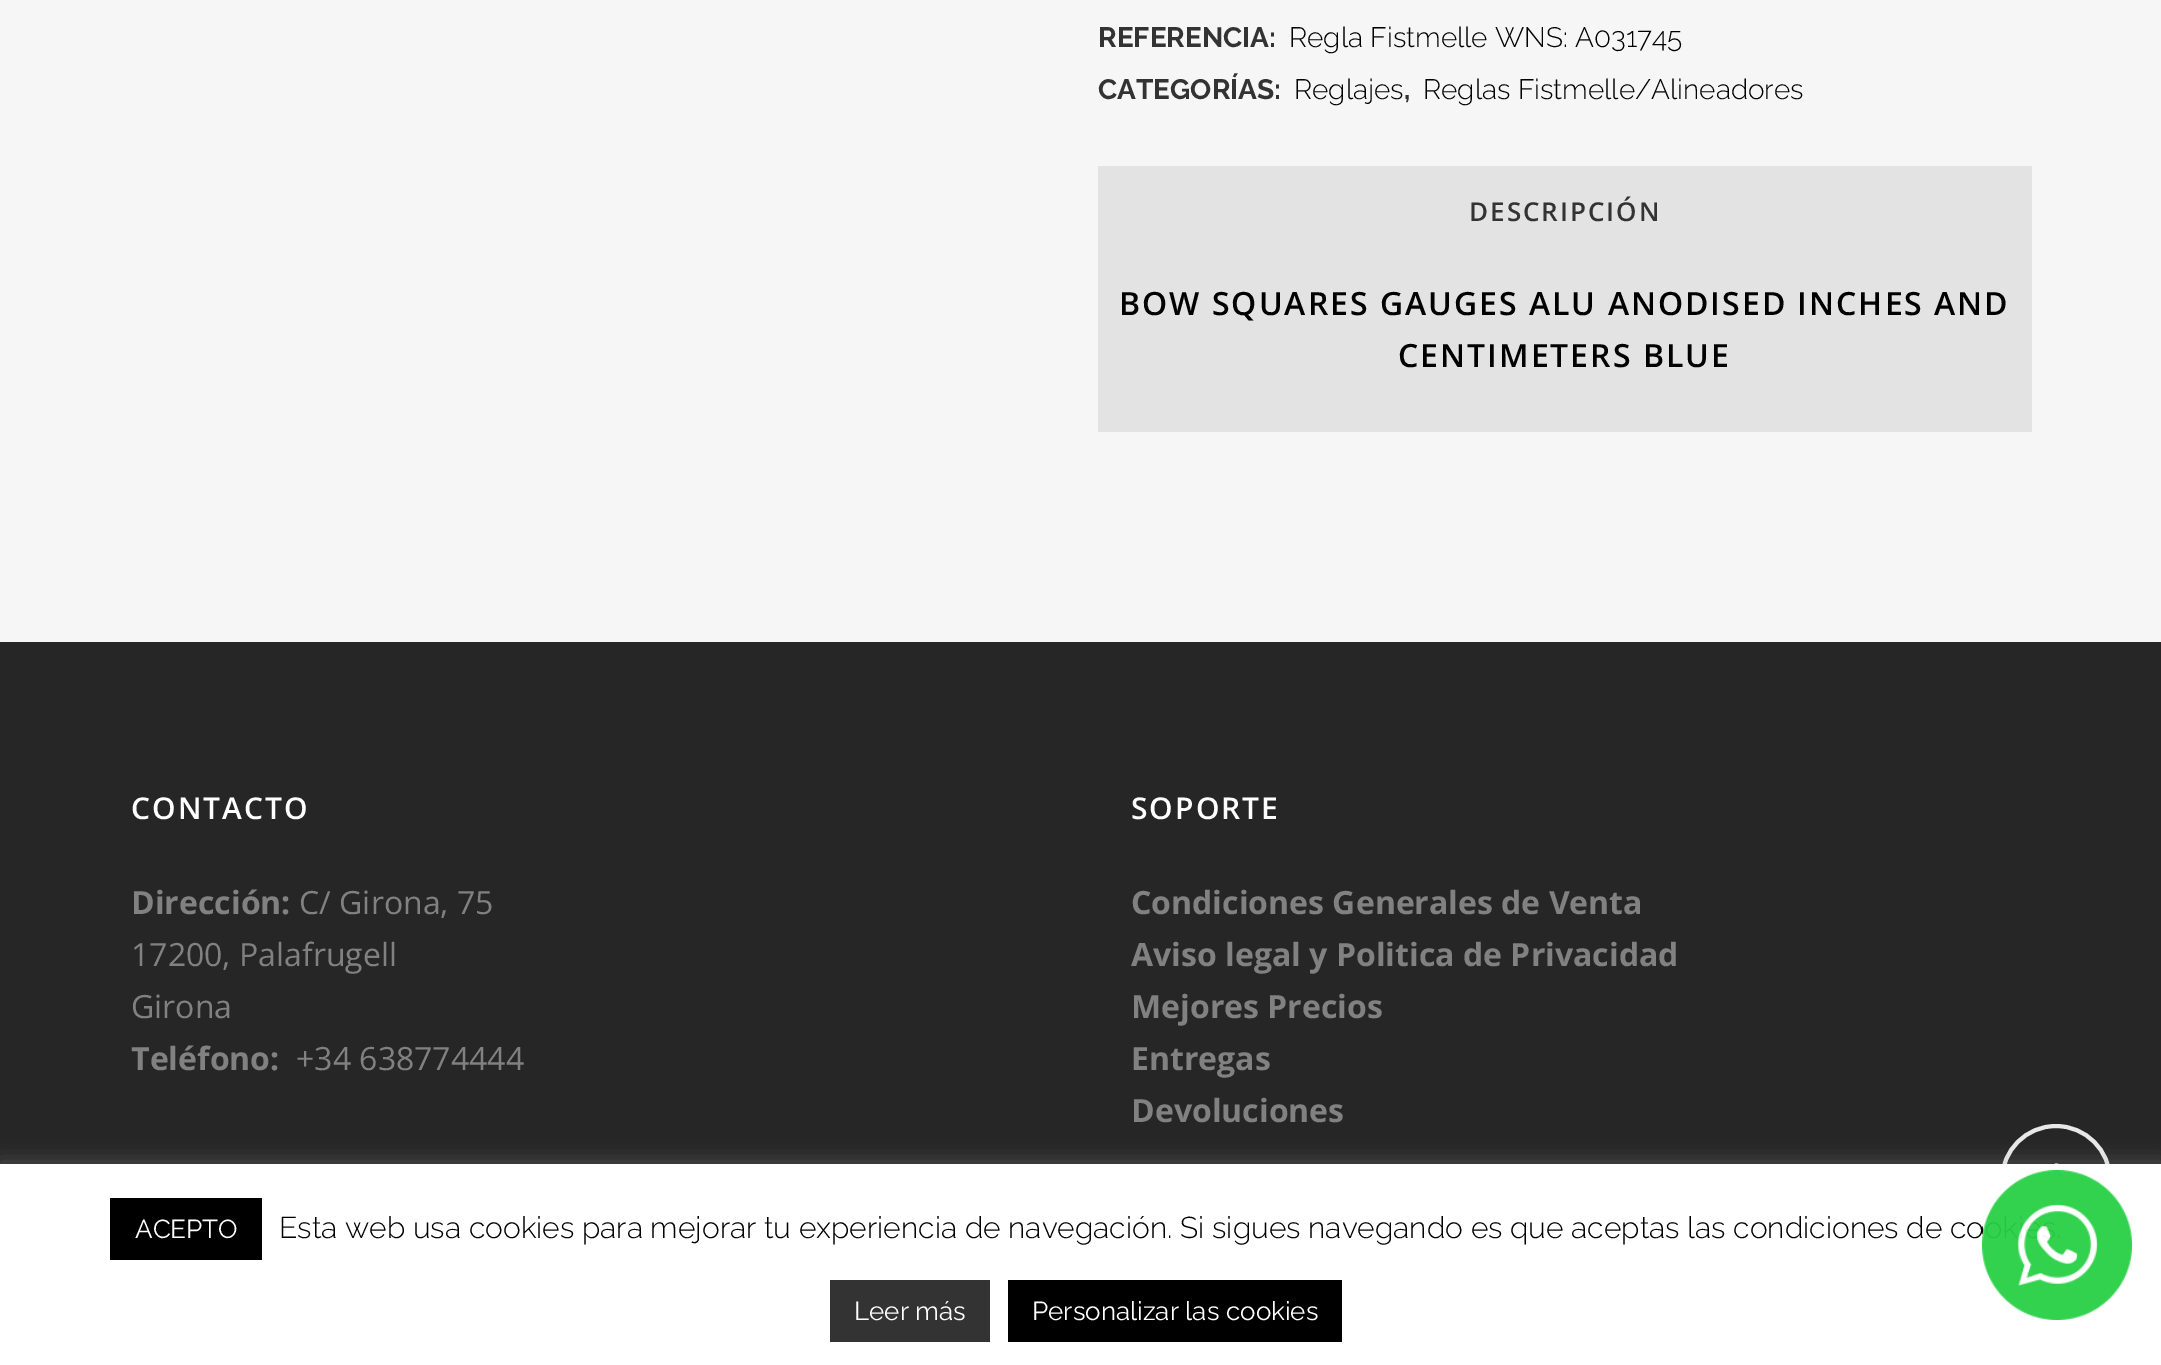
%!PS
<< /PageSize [2161 1365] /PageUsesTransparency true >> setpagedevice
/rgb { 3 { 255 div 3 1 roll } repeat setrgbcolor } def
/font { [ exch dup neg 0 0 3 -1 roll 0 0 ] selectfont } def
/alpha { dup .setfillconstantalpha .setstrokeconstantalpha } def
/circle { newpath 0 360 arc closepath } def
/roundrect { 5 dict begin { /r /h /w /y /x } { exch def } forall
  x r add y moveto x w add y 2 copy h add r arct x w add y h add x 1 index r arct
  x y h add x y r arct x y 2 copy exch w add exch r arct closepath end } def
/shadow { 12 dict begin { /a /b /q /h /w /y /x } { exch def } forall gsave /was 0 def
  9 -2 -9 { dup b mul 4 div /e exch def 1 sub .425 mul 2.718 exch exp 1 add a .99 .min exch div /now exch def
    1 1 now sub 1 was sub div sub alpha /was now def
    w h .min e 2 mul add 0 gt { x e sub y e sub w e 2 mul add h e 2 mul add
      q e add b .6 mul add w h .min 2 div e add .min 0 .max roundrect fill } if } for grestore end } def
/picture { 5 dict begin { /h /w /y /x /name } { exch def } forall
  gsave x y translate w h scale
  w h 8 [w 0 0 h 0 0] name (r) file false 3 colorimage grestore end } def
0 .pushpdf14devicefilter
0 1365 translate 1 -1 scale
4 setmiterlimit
246 246 246 rgb
0 0 2161 1365 rectfill
227 227 227 rgb
1098 166 934 266 rectfill
38 38 38 rgb
0 642 2161 522 rectfill
232 232 232 rgb
4 setlinewidth
2056 1180 54 circle stroke
(img/1.rgb) 2054 1163 5 1 picture
172 171 171 rgb
0 1162 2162 202 0 10 0.3 shadow
[
  [0 1164 2161 201 255 255 255]
  [110 1198 152 62 0 0 0]
  [830 1280 160 62 51 51 51]
  [1008 1280 334 62 0 0 0]
] { aload pop rgb rectfill } forall
/Raleway-Bold 28 font
51 51 51 rgb
1098 47 moveto (REFERENCIA:) show
/Raleway-Light 28 font
0 0 0 rgb
1289 47 moveto (Regla Fistmelle WNS: A031745) show
/Raleway-Bold 28 font
51 51 51 rgb
1098 99 moveto (CATEGORÍAS:) show
/Raleway-Light 28 font
0 0 0 rgb
1294 99 moveto (Reglajes) show
/Raleway-Bold 28 font
51 51 51 rgb
1404 99 moveto (,) show
/Raleway-Light 28 font
0 0 0 rgb
1423 99 moveto (Reglas Fistmelle/Alineadores) show
/OpenSans-SemiBold 26 font
51 51 51 rgb
1469 221 moveto 2 0 (DESCRIPCIÓN) ashow
/OpenSans-SemiBold 32 font
0 0 0 rgb
1119 315 moveto 2 0 (BOW SQUARES GAUGES ALU ANODISED INCHES AND) ashow
1398 367 moveto 2 0 (CENTIMETERS BLUE) ashow
/OpenSans-SemiBold 30 font
255 255 255 rgb
131 819 moveto 2 0 (CONTACTO) ashow
/OpenSans-Bold 32 font
129 129 129 rgb
131 914 moveto (Dirección:) show
/OpenSans-Regular 32 font
[
  [(C/ Girona, 75) 299 914]
  [(17200, Palafrugell) 131 966]
  [(Girona) 131 1018]
] { aload pop moveto show } forall
/OpenSans-Bold 32 font
131 1070 moveto (Teléfono:) show
/OpenSans-Regular 32 font
296 1070 moveto (+34 638774444) show
/OpenSans-SemiBold 30 font
255 255 255 rgb
1131 819 moveto 2 0 (SOPORTE) ashow
/OpenSans-Bold 32 font
129 129 129 rgb
[
  [(Condiciones Generales de Venta) 1131 914]
  [(Aviso legal y Politica de Privacidad) 1131 966]
  [(Mejores Precios) 1131 1018]
  [(Entregas) 1131 1070]
  [(Devoluciones) 1131 1122]
] { aload pop moveto show } forall
/Raleway-Regular 26 font
255 255 255 rgb
135 1238 moveto (ACEPTO) show
/Raleway-Light 30 font
0 0 0 rgb
279 1238 moveto (Esta web usa cookies para mejorar tu experiencia de navegación. Si sigues navegando es que aceptas las condiciones de co) show
/Raleway-Regular 26 font
255 255 255 rgb
854 1320 moveto (Leer más) show
1032 1320 moveto (Personalizar las cookies) show
(img/2.rgb) 1982 1170 150 150 picture
.poppdf14devicefilter showpage
